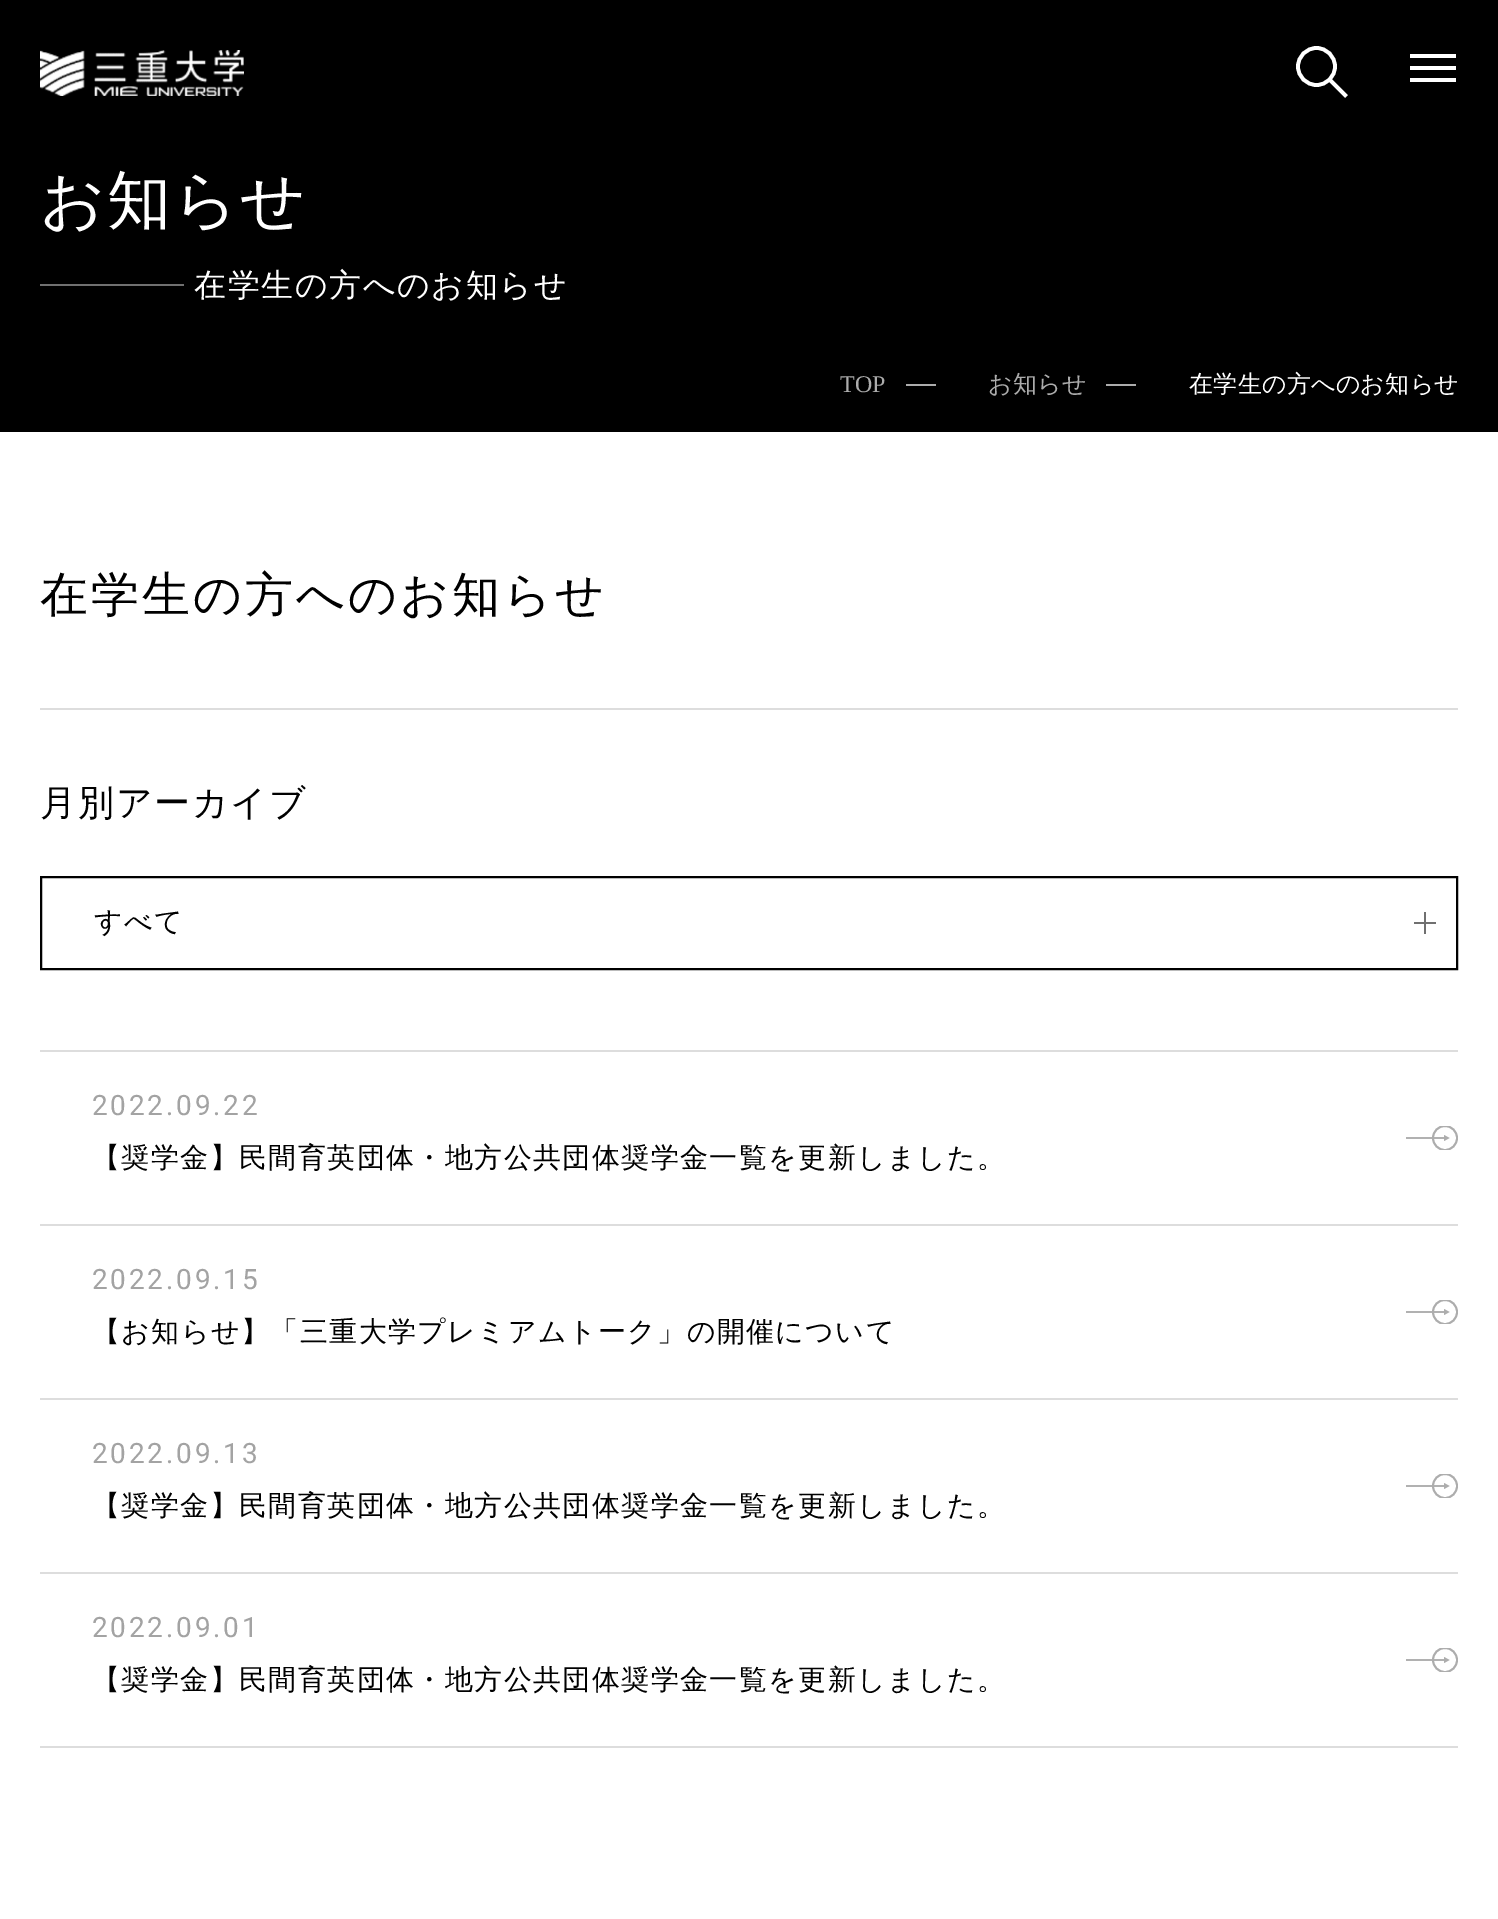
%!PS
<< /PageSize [1498 1919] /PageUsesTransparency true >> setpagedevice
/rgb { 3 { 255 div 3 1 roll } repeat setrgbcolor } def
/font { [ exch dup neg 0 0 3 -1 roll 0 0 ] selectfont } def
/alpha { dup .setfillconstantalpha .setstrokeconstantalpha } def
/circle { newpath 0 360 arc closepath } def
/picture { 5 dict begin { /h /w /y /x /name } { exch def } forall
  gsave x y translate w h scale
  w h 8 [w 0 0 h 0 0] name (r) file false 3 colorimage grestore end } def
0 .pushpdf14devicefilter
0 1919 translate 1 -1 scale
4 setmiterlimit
255 255 255 rgb
0 0 1498 1919 rectfill
0 0 0 rgb
0 0 1498 432 rectfill
(img/1.rgb) 40 50 204 46 picture
255 255 255 rgb
3.7 setlinewidth
1329.5 79.5 moveto 1346.5 96.5 lineto stroke
1316.5 66.5 18.5 circle stroke
[
  [1410 54 46 4 255 255 255]
  [1410 66 46 4 255 255 255]
  [1410 78 46 4 255 255 255]
  [40 284 144 2 112 112 112]
  [906 384 30 2 172 172 172]
  [1106 384 30 2 172 172 172]
  [40 1050 1418 2 221 221 221]
  [40 708 1418 2 221 221 221]
] { aload pop rgb rectfill } forall
0 0 0 rgb
2 setlinewidth
41 877 1416 92 rectstroke
[
  [1414 922 22 2 112 112 112]
  [1424 912 2 22 112 112 112]
  [40 1224 1418 2 221 221 221]
] { aload pop rgb rectfill } forall
gsave
1406 1126 52 24 rectclip
173 173 173 rgb
1.9 setlinewidth
1445 1138 12 circle stroke
grestore
0.95 alpha
173 173 173 rgb
1406 1137 39 2 rectfill
1 alpha
1449.5 1138 moveto 1444 1141 lineto 1444 1135 lineto closepath fill
221 221 221 rgb
40 1398 1418 2 rectfill
gsave
1406 1300 52 24 rectclip
173 173 173 rgb
1.9 setlinewidth
1445 1312 12 circle stroke
grestore
0.95 alpha
173 173 173 rgb
1406 1311 39 2 rectfill
1 alpha
1449.5 1312 moveto 1444 1315 lineto 1444 1309 lineto closepath fill
221 221 221 rgb
40 1572 1418 2 rectfill
gsave
1406 1474 52 24 rectclip
173 173 173 rgb
1.9 setlinewidth
1445 1486 12 circle stroke
grestore
0.95 alpha
173 173 173 rgb
1406 1485 39 2 rectfill
1 alpha
1449.5 1486 moveto 1444 1489 lineto 1444 1483 lineto closepath fill
221 221 221 rgb
40 1746 1418 2 rectfill
gsave
1406 1648 52 24 rectclip
173 173 173 rgb
1.9 setlinewidth
1445 1660 12 circle stroke
grestore
0.95 alpha
173 173 173 rgb
1406 1659 39 2 rectfill
1 alpha
1449.5 1660 moveto 1444 1663 lineto 1444 1657 lineto closepath fill
/WenQuanYiZenHei-Medium 64 font
255 255 255 rgb
40 222 moveto 1.5 0 (お知らせ) ashow
/WenQuanYiZenHei-Medium 32 font
194 296 moveto 1.6 0 (在学生の方へのお知らせ) ashow
/LiberationSerif-Regular 24 font
172 172 172 rgb
840 392 moveto 0.25 0 (TOP) ashow
/WenQuanYiZenHei-Medium 24 font
988 392 moveto 0.25 0 (お知らせ) ashow
255 255 255 rgb
1189 392 moveto 0.25 0 (在学生の方へのお知らせ) ashow
/WenQuanYiZenHei-Medium 48 font
0 0 0 rgb
40 611 moveto 2.9 0 (在学生の方へのお知らせ) ashow
/WenQuanYiZenHei-Medium 36 font
40 815 moveto 1.75 0 (月別アーカイブ) ashow
/WenQuanYiZenHei-Medium 28 font
94 931 moveto 1.4 0 (すべて) ashow
/Roboto-Regular 28 font
163 163 163 rgb
92 1115 moveto 2.75 0 (2022.09.22) ashow
/WenQuanYiZenHei-Medium 28 font
0 0 0 rgb
92 1167 moveto 1.4 0 (【奨学金】民間育英団体・地方公共団体奨学金一覧を更新しました。) ashow
/Roboto-Regular 28 font
163 163 163 rgb
92 1289 moveto 2.75 0 (2022.09.15) ashow
/WenQuanYiZenHei-Medium 28 font
0 0 0 rgb
92 1341 moveto 1.4 0 (【お知らせ】「三重大学プレミアムトーク」の開催について) ashow
/Roboto-Regular 28 font
163 163 163 rgb
92 1463 moveto 2.75 0 (2022.09.13) ashow
/WenQuanYiZenHei-Medium 28 font
0 0 0 rgb
92 1515 moveto 1.4 0 (【奨学金】民間育英団体・地方公共団体奨学金一覧を更新しました。) ashow
/Roboto-Regular 28 font
163 163 163 rgb
92 1637 moveto 2.75 0 (2022.09.01) ashow
/WenQuanYiZenHei-Medium 28 font
0 0 0 rgb
92 1689 moveto 1.4 0 (【奨学金】民間育英団体・地方公共団体奨学金一覧を更新しました。) ashow
.poppdf14devicefilter showpage
